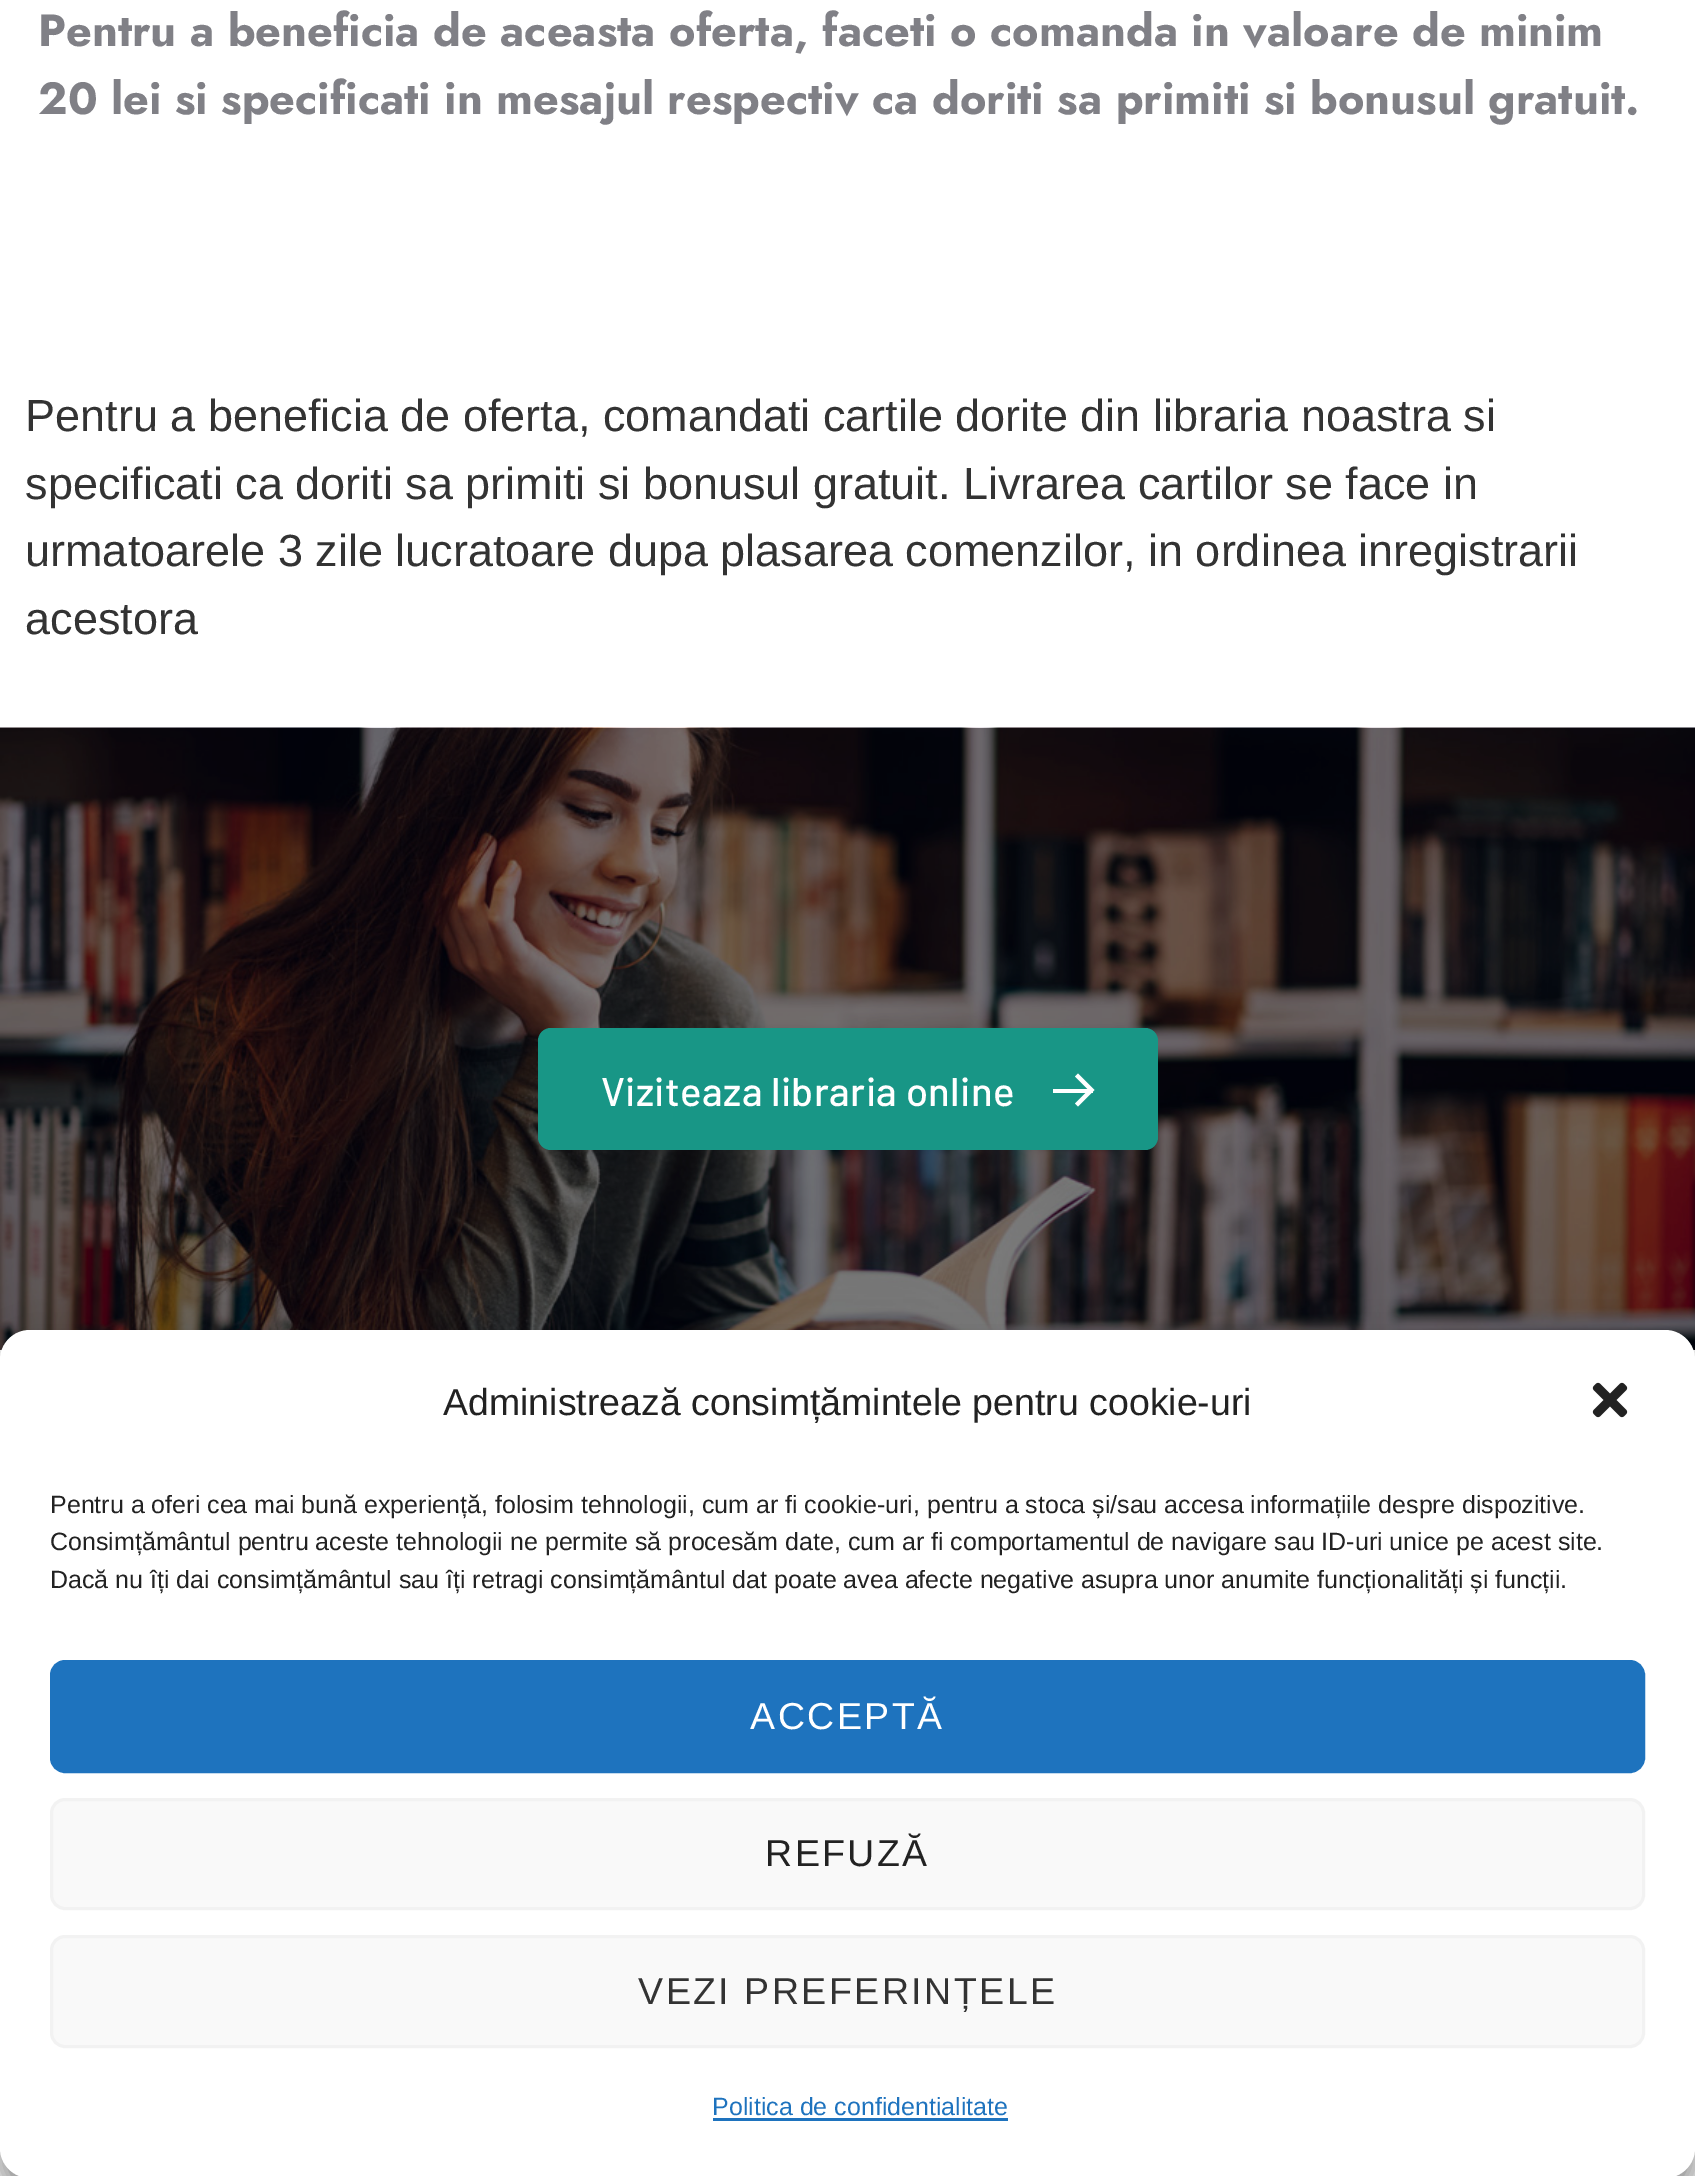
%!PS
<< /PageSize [1695 2176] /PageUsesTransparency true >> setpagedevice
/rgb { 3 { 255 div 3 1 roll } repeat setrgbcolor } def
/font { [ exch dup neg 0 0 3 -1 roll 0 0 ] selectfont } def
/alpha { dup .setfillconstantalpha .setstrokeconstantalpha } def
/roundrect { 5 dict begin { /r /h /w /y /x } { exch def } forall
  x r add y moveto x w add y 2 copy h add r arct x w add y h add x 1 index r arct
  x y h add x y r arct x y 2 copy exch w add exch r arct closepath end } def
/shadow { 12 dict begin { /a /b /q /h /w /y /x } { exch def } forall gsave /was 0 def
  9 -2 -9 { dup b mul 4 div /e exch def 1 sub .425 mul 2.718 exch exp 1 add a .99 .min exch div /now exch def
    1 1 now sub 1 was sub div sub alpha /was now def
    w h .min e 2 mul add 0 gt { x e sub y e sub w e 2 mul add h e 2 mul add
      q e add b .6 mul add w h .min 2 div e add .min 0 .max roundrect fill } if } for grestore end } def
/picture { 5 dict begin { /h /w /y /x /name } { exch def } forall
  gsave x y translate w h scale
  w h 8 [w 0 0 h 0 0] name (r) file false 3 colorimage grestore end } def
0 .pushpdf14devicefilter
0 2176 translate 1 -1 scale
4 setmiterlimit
255 255 255 rgb
0 0 1695 2176 rectfill
(img/1.rgb) 0 727 1695 623 picture
24 150 134 rgb
538 1028 620 122 13 roundrect fill
255 255 255 rgb
1053 1089 40 4 rectfill
1.9 setlinewidth
1076.5 1076.5 moveto 1078 1075 lineto 1093 1090 lineto 1091.5 1091.5 lineto closepath 1076.5 1103.5 moveto 1091.5 1088.5 lineto 1093 1090 lineto 1078 1105 lineto closepath stroke
242 242 242 rgb
0 1350 1695 826 rectfill
0 0 0 rgb
0 1345 1695 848 30 7.5 0.23 shadow
0 1355 1695 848 30 25 0.19 shadow
255 255 255 rgb
0 1330 1695 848 30 roundrect fill
(img/2.rgb) 1592 1382 36 36 picture
30 115 190 rgb
51.5 1661.5 1592 110 13.5 roundrect gsave fill grestore
3 setlinewidth
stroke
249 249 249 rgb
51.5 1799.5 1592 109 13.5 roundrect gsave fill grestore
242 242 242 rgb
stroke
249 249 249 rgb
51.5 1936.5 1592 110 13.5 roundrect gsave fill grestore
242 242 242 rgb
stroke
30 115 190 rgb
713 2118 295 3 rectfill
/Jost-Bold 45 font
128 128 134 rgb
38 46 moveto (Pentru a beneficia de aceasta oferta, faceti o comanda in valoare de minim) show
38 114 moveto (20 lei si specificati in mesajul respectiv ca doriti sa primiti si bonusul gratuit.) show
/LiberationSans-Regular 45 font
51 51 51 rgb
[
  [(Pentru a beneficia de oferta, comandati cartile dorite din libraria noastra si) 25 431]
  [(specificati ca doriti sa primiti si bonusul gratuit. Livrarea cartilor se face in) 25 499]
  [(urmatoarele 3 zile lucratoare dupa plasarea comenzilor, in ordinea inregistrarii) 25 566]
  [(acestora) 25 634]
] { aload pop moveto show } forall
/Barlow-Medium 40 font
255 255 255 rgb
601 1106 moveto 0.4 0 (Viziteaza libraria online) ashow
/LiberationSans-Regular 37.5 font
34 34 34 rgb
443 1415 moveto (Administrează consimțămintele pentru cookie-uri) show
/LiberationSans-Regular 25 font
[
  [(Pentru a oferi cea mai bună experiență, folosim tehnologii, cum ar fi cookie-uri, pentru a stoca și/sau accesa informațiile despre dispozitive.) 50 1513]
  [(Consimțământul pentru aceste tehnologii ne permite să procesăm date, cum ar fi comportamentul de navigare sau ID-uri unice pe acest site.) 50 1550]
  [(Dacă nu îți dai consimțământul sau îți retragi consimțământul dat poate avea afecte negative asupra unor anumite funcționalități și funcții.) 50 1588]
] { aload pop moveto show } forall
/LiberationSans-Regular 37.5 font
255 255 255 rgb
750 1729 moveto 2.5 0 (ACCEPTĂ) ashow
34 34 34 rgb
765 1866 moveto 2.5 0 (REFUZĂ) ashow
51 51 51 rgb
638 2004 moveto 2.5 0 (VEZI PREFERINȚELE) ashow
/LiberationSans-Regular 25 font
30 115 190 rgb
712 2115 moveto (Politica de confidentialitate) show
.poppdf14devicefilter showpage
